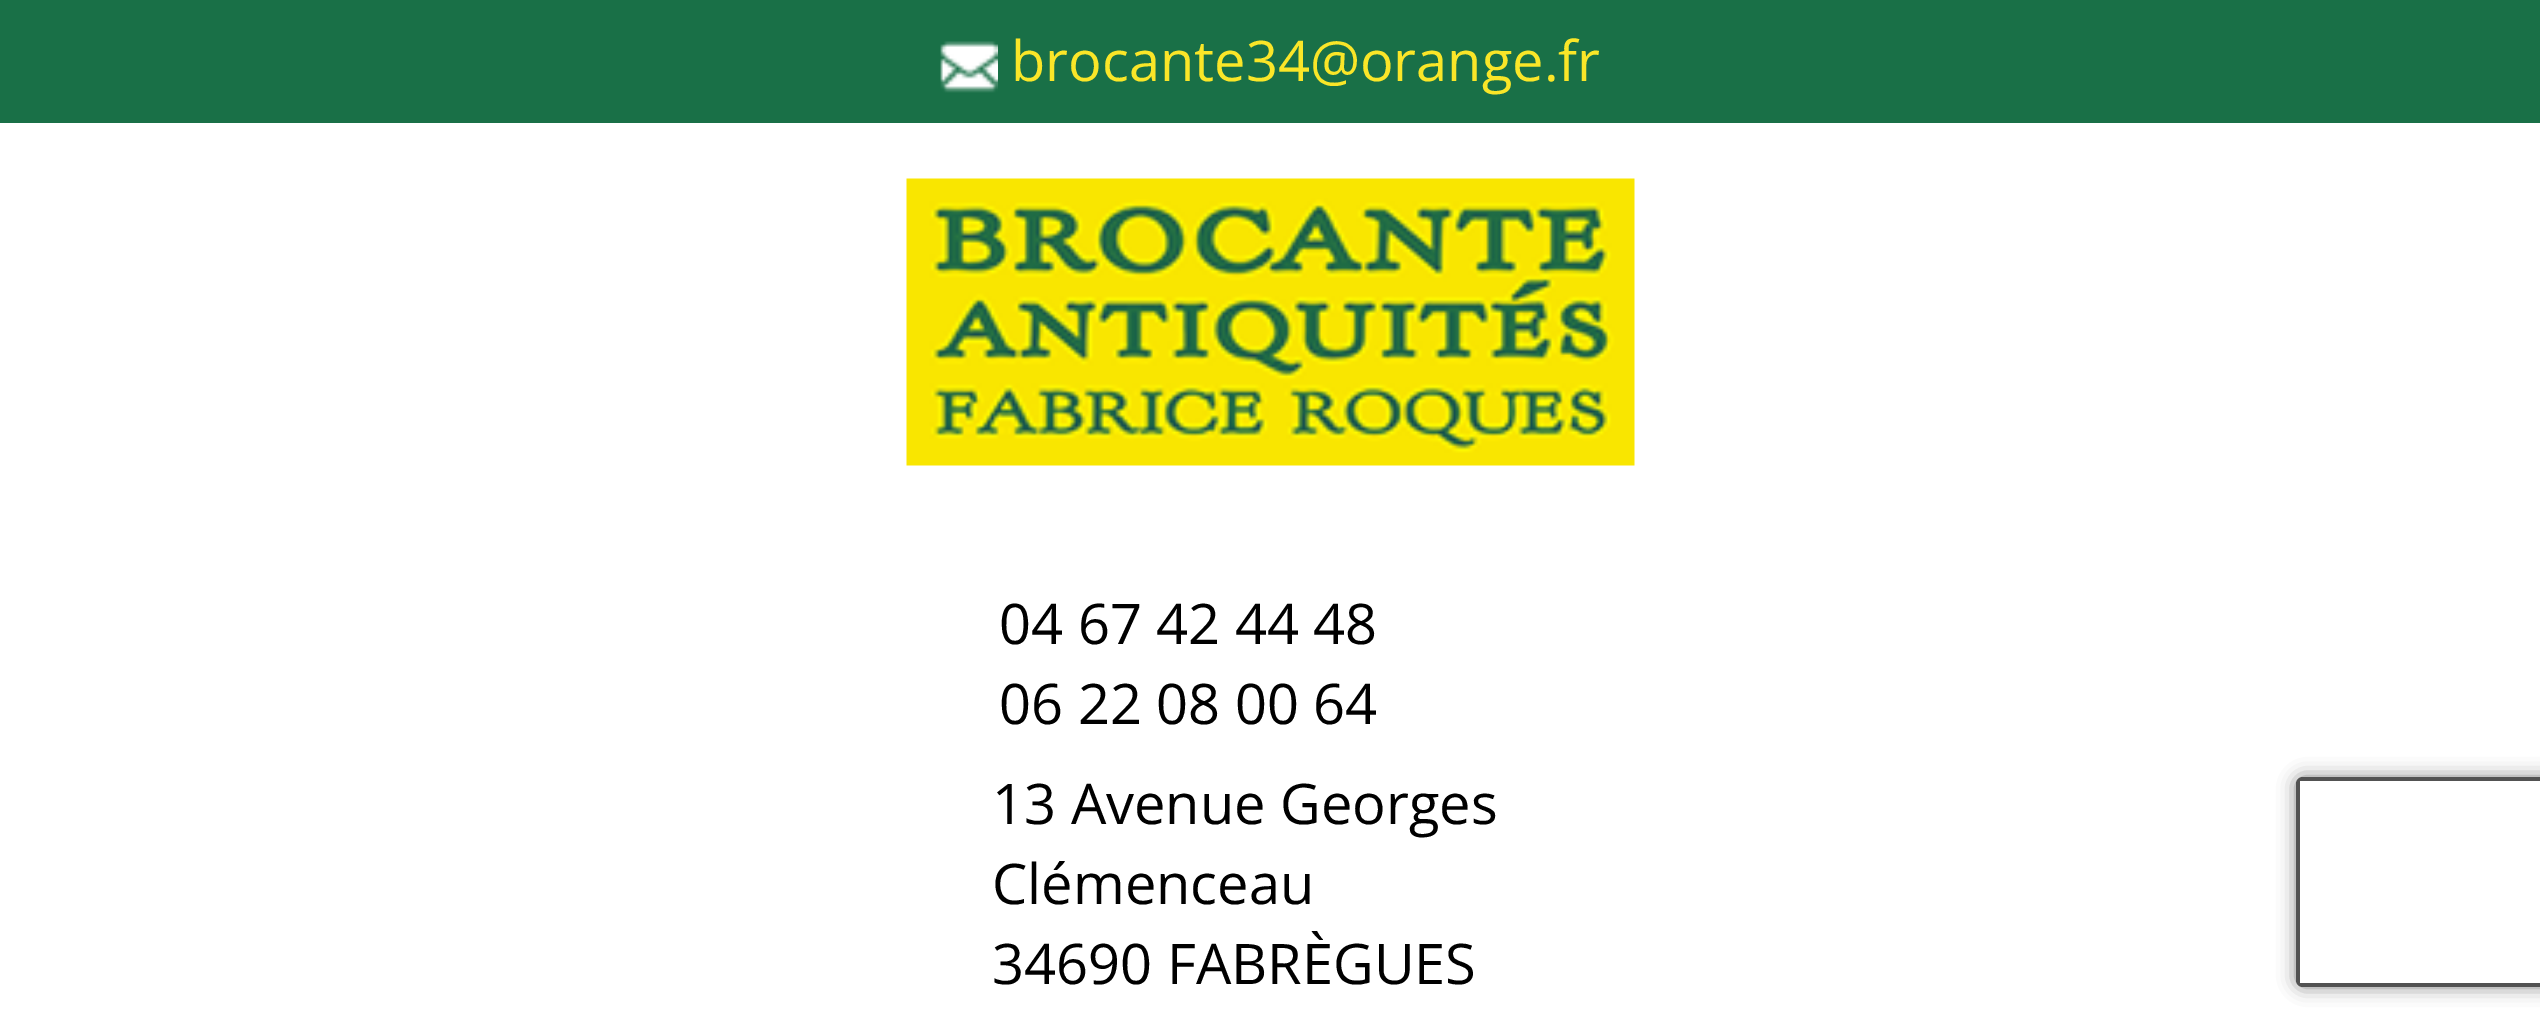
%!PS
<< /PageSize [2540 1036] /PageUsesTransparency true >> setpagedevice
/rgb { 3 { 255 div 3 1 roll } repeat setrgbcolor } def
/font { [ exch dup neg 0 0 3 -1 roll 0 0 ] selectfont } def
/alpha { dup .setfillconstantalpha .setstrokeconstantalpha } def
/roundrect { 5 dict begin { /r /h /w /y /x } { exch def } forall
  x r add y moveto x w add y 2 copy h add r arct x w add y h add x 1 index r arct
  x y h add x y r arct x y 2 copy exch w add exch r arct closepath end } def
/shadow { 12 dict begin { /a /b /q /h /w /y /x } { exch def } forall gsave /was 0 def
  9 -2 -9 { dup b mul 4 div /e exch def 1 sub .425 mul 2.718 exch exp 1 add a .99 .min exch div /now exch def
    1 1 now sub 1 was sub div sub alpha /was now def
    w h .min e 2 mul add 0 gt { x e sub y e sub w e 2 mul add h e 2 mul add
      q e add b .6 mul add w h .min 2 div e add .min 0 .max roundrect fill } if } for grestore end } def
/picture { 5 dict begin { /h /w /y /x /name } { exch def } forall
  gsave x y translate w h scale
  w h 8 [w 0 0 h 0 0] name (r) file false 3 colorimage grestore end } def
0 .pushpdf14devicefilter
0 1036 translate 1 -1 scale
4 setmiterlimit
255 255 255 rgb
0 0 2540 1036 rectfill
25 112 71 rgb
0 0 2540 123 rectfill
(img/1.rgb) 940 41 58 52 picture
(img/2.rgb) 906 178 729 288 picture
gsave
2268 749 moveto 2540 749 lineto 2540 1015 lineto 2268 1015 lineto closepath 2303 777 moveto 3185 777 lineto 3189 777 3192 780 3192 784 curveto 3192 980 lineto 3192 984 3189 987 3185 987 curveto 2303 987 lineto 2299 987 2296 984 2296 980 curveto 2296 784 lineto 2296 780 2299 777 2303 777 curveto closepath eoclip newpath
128 128 128 rgb
2296 777 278 210 7 9 1 shadow
grestore
82 82 82 rgb
2303 777 moveto 2299 777 2296 780 2296 784 curveto 2296 980 lineto 2296 984 2299 987 2303 987 curveto 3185 987 lineto 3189 987 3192 984 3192 980 curveto 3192 784 lineto 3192 780 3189 777 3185 777 curveto closepath 2300 781 moveto 2300 983 lineto 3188 983 lineto 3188 781 lineto closepath eofill
/OpenSans-Regular 56 font
250 230 40 rgb
1011 81 moveto (brocante34@orange.fr) show
0 0 0 rgb
[
  [(04 67 42 44 48) 999 644]
  [(06 22 08 00 64) 999 724]
  [(13 Avenue Georges) 992 824]
  [(Clémenceau) 992 904]
  [(34690 FABRÈGUES) 992 984]
] { aload pop moveto show } forall
.poppdf14devicefilter showpage
